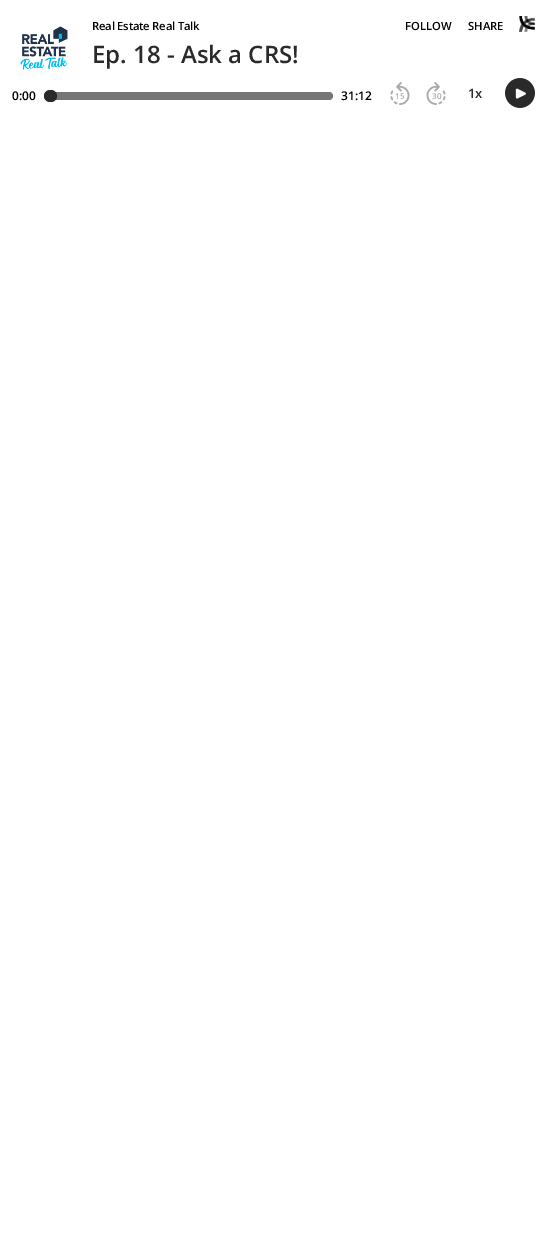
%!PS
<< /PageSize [547 1255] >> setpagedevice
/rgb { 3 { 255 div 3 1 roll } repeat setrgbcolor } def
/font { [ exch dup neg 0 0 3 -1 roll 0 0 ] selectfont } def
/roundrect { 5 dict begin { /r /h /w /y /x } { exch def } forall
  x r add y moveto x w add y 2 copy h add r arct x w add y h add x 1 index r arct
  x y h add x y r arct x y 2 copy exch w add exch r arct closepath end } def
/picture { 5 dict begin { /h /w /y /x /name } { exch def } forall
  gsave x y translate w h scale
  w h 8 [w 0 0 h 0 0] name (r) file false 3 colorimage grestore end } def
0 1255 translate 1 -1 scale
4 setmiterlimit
255 255 255 rgb
0 0 547 1255 rectfill
(img/1.rgb) 20 26 48 44 picture
(img/2.rgb) 519 16 16 16 picture
118 118 118 rgb
44 92 289 8 4 roundrect fill
42 42 42 rgb
44 90 13 12 6 roundrect fill
(img/3.rgb) 390 82 20 23 picture
(img/4.rgb) 426 82 20 23 picture
(img/5.rgb) 505 78 30 30 picture
/OpenSans-SemiBold 11.25 font
0 0 0 rgb
92 30 moveto -0.2 0 (Real Estate Real Talk) ashow
405 30 moveto (FOLLOW) show
468 30 moveto (SHARE) show
/OpenSans-SemiBold 24 font
42 42 42 rgb
92 63 moveto (Ep. 18 - Ask a CRS!) show
/OpenSans-SemiBold 12 font
0 0 0 rgb
12 100 moveto (0:00) show
341 100 moveto (31:12) show
/OpenSans-SemiBold 8 font
170 170 170 rgb
395 99 moveto (15) show
432 99 moveto (30) show
/OpenSans-SemiBold 13 font
42 42 42 rgb
468 98 moveto (1x) show
showpage
